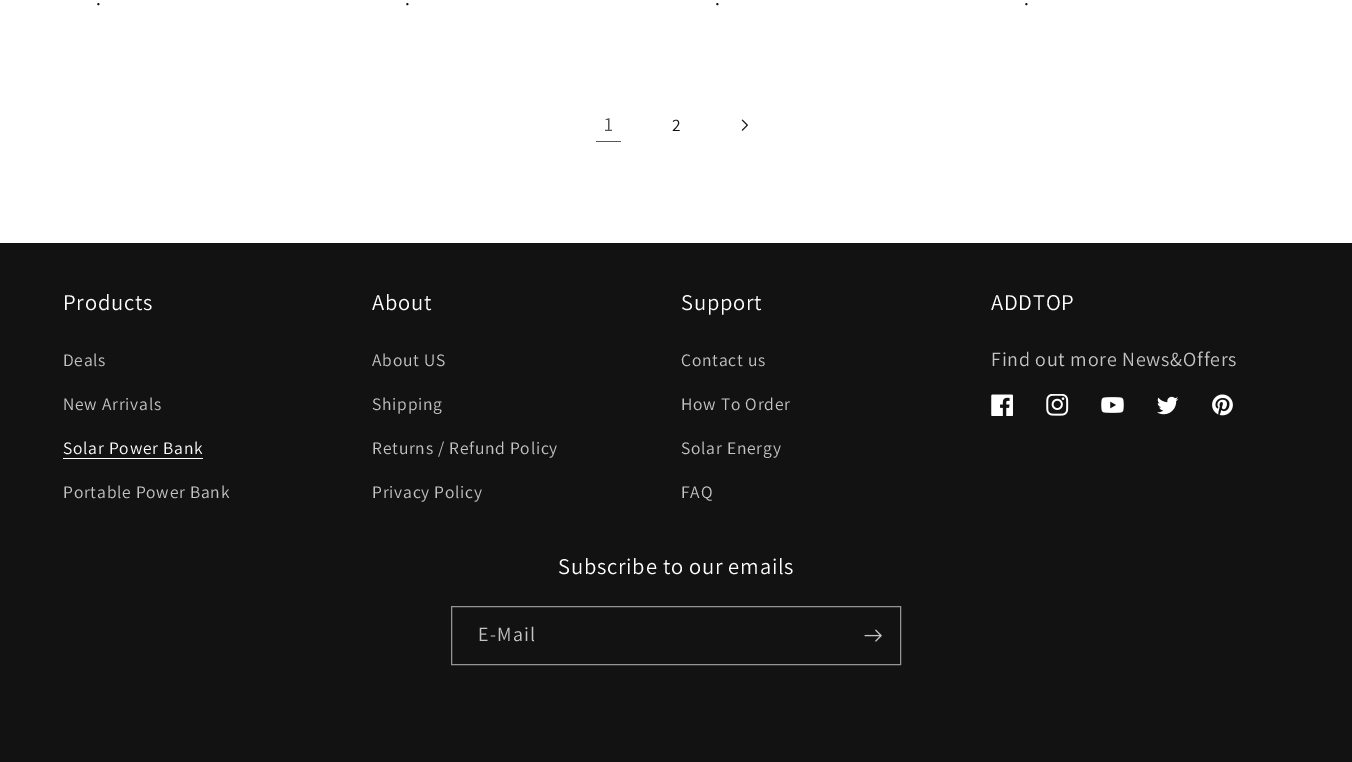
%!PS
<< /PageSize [1352 762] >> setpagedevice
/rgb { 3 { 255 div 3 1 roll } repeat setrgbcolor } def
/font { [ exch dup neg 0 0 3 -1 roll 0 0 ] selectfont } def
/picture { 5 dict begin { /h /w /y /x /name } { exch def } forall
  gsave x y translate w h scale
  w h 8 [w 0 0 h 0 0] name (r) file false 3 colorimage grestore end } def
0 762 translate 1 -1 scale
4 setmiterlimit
255 255 255 rgb
0 0 1352 762 rectfill
89 89 89 rgb
596 141 25 1 rectfill
(img/1.rgb) 741 119 7 12 picture
18 18 18 rgb
0 243 1352 519 rectfill
255 255 255 rgb
63 458 140 1 rectfill
(img/2.rgb) 991 394 22 22 picture
(img/3.rgb) 1046 394 23 22 picture
(img/4.rgb) 1101 397 23 16 picture
(img/5.rgb) 1157 396 22 19 picture
(img/6.rgb) 1212 394 21 22 picture
148 148 148 rgb
451.5 606.5 449 58 rectstroke
(img/7.rgb) 864 629 18 13 picture
/Assistant-Regular 20 font
18 18 18 rgb
96 5 moveto 1.25 0 (.) ashow
405 5 moveto 1.25 0 (.) ashow
715 5 moveto 1.25 0 (.) ashow
1024 5 moveto 1.25 0 (.) ashow
89 89 89 rgb
604 131 moveto 0.75 0 (1) ashow
/Assistant-Regular 17.5 font
18 18 18 rgb
672 131 moveto 0.75 0 (2) ashow
/Assistant-Regular 22.5 font
255 255 255 rgb
63 310 moveto 0.75 0 (Products) ashow
/Assistant-Regular 17.5 font
196 196 196 rgb
63 366 moveto 0.75 0 (Deals) ashow
63 410 moveto 0.75 0 (New Arrivals) ashow
255 255 255 rgb
63 454 moveto 0.75 0 (Solar Power Bank) ashow
196 196 196 rgb
63 498 moveto 0.75 0 (Portable Power Bank) ashow
/Assistant-Regular 22.5 font
255 255 255 rgb
372 310 moveto 0.75 0 (About) ashow
/Assistant-Regular 17.5 font
196 196 196 rgb
372 366 moveto 0.75 0 (About US) ashow
372 410 moveto 0.75 0 (Shipping) ashow
372 454 moveto 0.75 0 (Returns / Refund Policy) ashow
372 498 moveto 0.75 0 (Privacy Policy) ashow
/Assistant-Regular 22.5 font
255 255 255 rgb
681 310 moveto 0.75 0 (Support) ashow
/Assistant-Regular 17.5 font
196 196 196 rgb
681 366 moveto 0.75 0 (Contact us) ashow
681 410 moveto 0.75 0 (How To Order) ashow
681 454 moveto 0.75 0 (Solar Energy) ashow
681 498 moveto 0.75 0 (FAQ) ashow
/Assistant-Regular 22.5 font
255 255 255 rgb
991 310 moveto 0.75 0 (ADDTOP) ashow
/Assistant-Regular 20 font
196 196 196 rgb
991 366 moveto 0.75 0 (Find out more News&Offers) ashow
/Assistant-Regular 22.5 font
255 255 255 rgb
558 574 moveto 0.75 0 (Subscribe to our emails) ashow
/Assistant-Regular 20 font
196 196 196 rgb
478 641 moveto 1.25 0 (E-Mail) ashow
showpage
